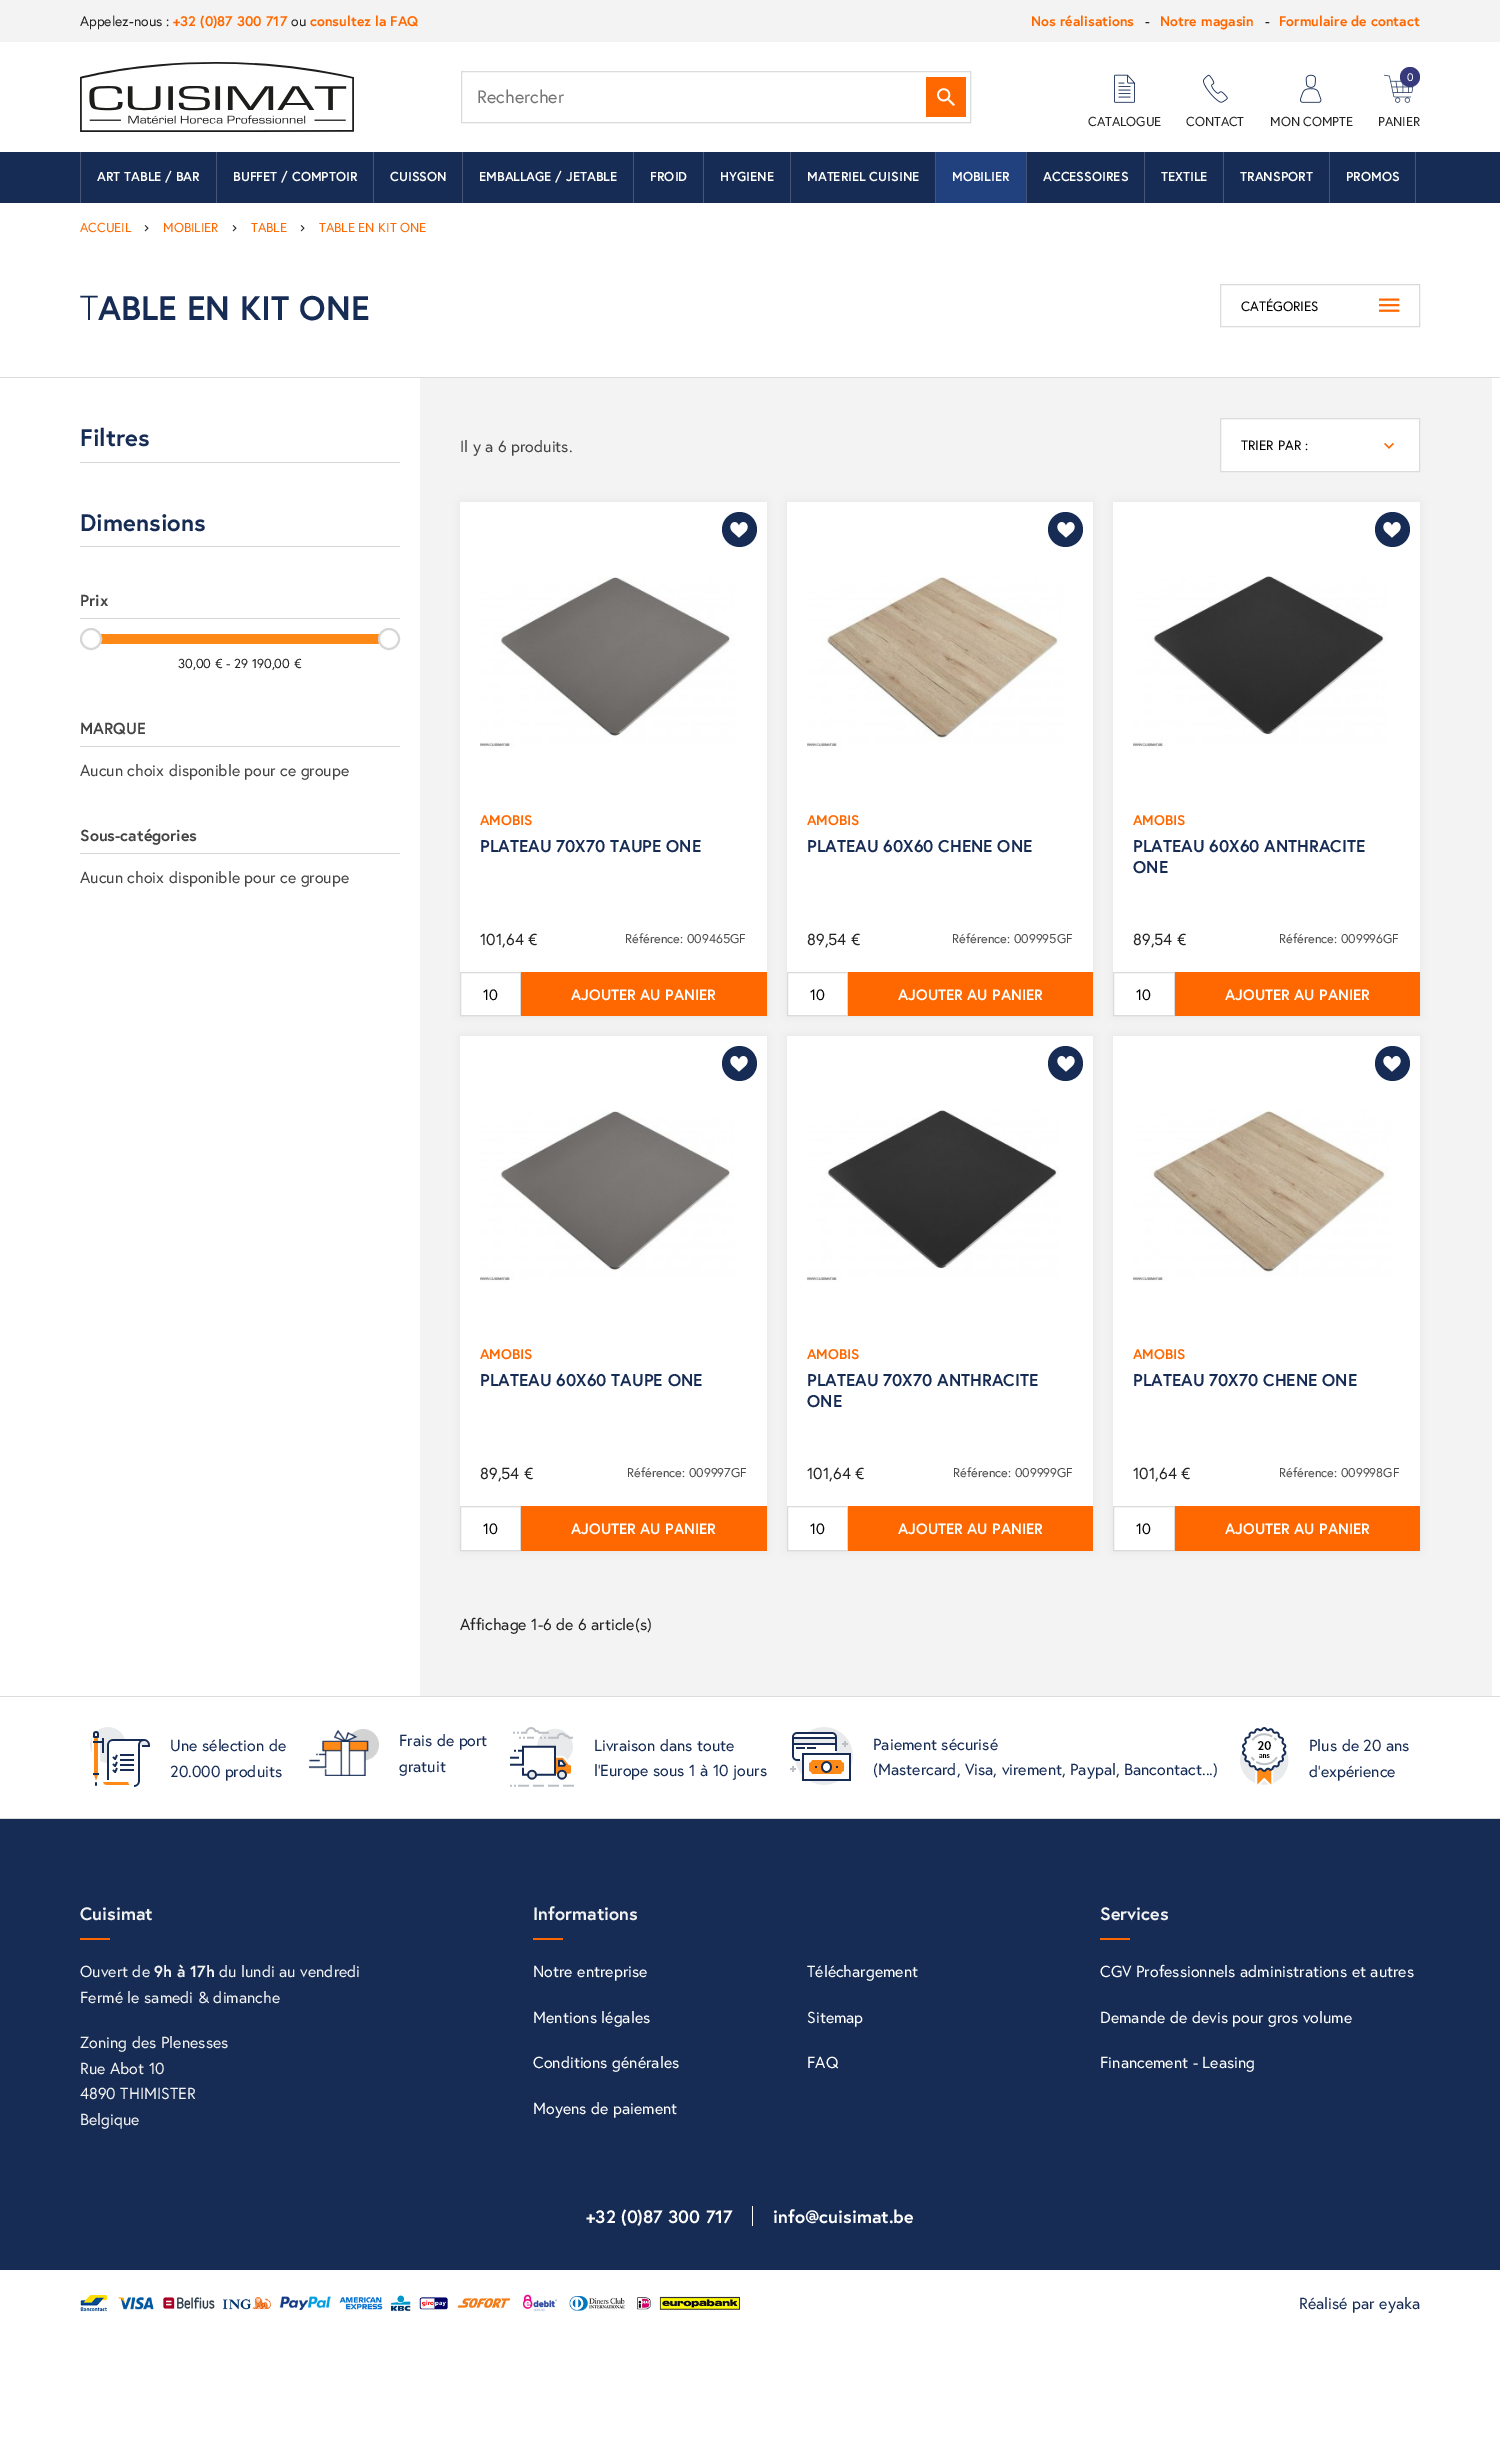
%!PS
<< /PageSize [1500 2448] /PageUsesTransparency true >> setpagedevice
/rgb { 3 { 255 div 3 1 roll } repeat setrgbcolor } def
/font { [ exch dup neg 0 0 3 -1 roll 0 0 ] selectfont } def
/alpha { dup .setfillconstantalpha .setstrokeconstantalpha } def
/circle { newpath 0 360 arc closepath } def
/roundrect { 5 dict begin { /r /h /w /y /x } { exch def } forall
  x r add y moveto x w add y 2 copy h add r arct x w add y h add x 1 index r arct
  x y h add x y r arct x y 2 copy exch w add exch r arct closepath end } def
/shadow { 12 dict begin { /a /b /q /h /w /y /x } { exch def } forall gsave /was 0 def
  9 -2 -9 { dup b mul 4 div /e exch def 1 sub .425 mul 2.718 exch exp 1 add a .99 .min exch div /now exch def
    1 1 now sub 1 was sub div sub alpha /was now def
    w h .min e 2 mul add 0 gt { x e sub y e sub w e 2 mul add h e 2 mul add
      q e add b .6 mul add w h .min 2 div e add .min 0 .max roundrect fill } if } for grestore end } def
/picture { 5 dict begin { /h /w /y /x /name } { exch def } forall
  gsave x y translate w h scale
  w h 8 [w 0 0 h 0 0] name (r) file false 3 colorimage grestore end } def
0 .pushpdf14devicefilter
0 2448 translate 1 -1 scale
4 setmiterlimit
255 255 255 rgb
0 0 1500 2448 rectfill
243 243 243 rgb
0 0 1500 42 rectfill
(img/1.rgb) 80 62 274 70 picture
219 219 219 rgb
461.5 71.5 509 51 rectstroke
255 104 0 rgb
926 77 40 40 rectfill
(img/2.rgb) 937 88 18 18 picture
(img/3.rgb) 1114 74 21 29 picture
(img/4.rgb) 1203 74 25 29 picture
(img/5.rgb) 1300 74 22 29 picture
(img/6.rgb) 1384 74 30 29 picture
55 57 125 rgb
1410 77 10 circle fill
[
  [0 152 1500 51 22 44 85]
  [216 152 1 51 69 86 119]
  [80 152 1 51 69 86 119]
  [373 152 1 51 69 86 119]
  [462 152 1 51 69 86 119]
  [633 152 1 51 69 86 119]
  [703 152 1 51 69 86 119]
  [790 152 1 51 69 86 119]
  [935 152 1 51 69 86 119]
  [1026 152 1 51 69 86 119]
  [936 152 90 51 32 65 126]
  [1144 152 1 51 69 86 119]
  [1223 152 1 51 69 86 119]
  [1329 152 1 51 69 86 119]
  [1415 152 1 51 69 86 119]
] { aload pop rgb rectfill } forall
(img/7.rgb) 144 225 5 7 picture
(img/7.rgb) 232 225 5 7 picture
(img/7.rgb) 300 225 5 7 picture
219 219 219 rgb
0 377 1500 1 rectfill
1220.5 284.5 199 42 rectstroke
(img/8.rgb) 1379 298 21 14 picture
[
  [80 462 320 1 214 212 212]
  [80 546 320 1 214 212 212]
  [80 618 320 1 214 212 212]
  [100 634 280 10 255 137 22]
] { aload pop rgb rectfill } forall
255 255 255 rgb
91 639 10 circle gsave fill grestore
214 214 214 rgb
2 setlinewidth
stroke
255 255 255 rgb
389 639 10 circle gsave fill grestore
214 214 214 rgb
stroke
[
  [80 746 320 1 214 212 212]
  [80 853 320 1 214 212 212]
  [420 378 1072 1318 243 243 243]
] { aload pop rgb rectfill } forall
255 255 255 rgb
1220.5 418.5 moveto 1419.5 418.5 lineto 1419.5 471.5 lineto 1220.5 471.5 lineto closepath gsave fill grestore
219 219 219 rgb
1 setlinewidth
stroke
(img/9.rgb) 1384 442 10 7 picture
0 0 0 rgb
460 502 307 514 0 5 0.05 shadow
255 255 255 rgb
460 502 307 513 rectfill
(img/10.rgb) 480 577 255 171 picture
22 44 85 rgb
739.5 529.5 17.5 circle fill
(img/11.rgb) 730 522 18 16 picture
219 219 219 rgb
460.5 972.5 60 43 rectstroke
255 104 0 rgb
521 972 246 44 rectfill
0 0 0 rgb
787 502 306 514 0 5 0.05 shadow
255 255 255 rgb
787 502 306 513 rectfill
(img/12.rgb) 807 576 257 172 picture
22 44 85 rgb
1065.5 529.5 17.5 circle fill
(img/11.rgb) 1057 522 18 16 picture
219 219 219 rgb
787.5 972.5 60 43 rectstroke
255 104 0 rgb
848 972 245 44 rectfill
0 0 0 rgb
1113 502 307 514 0 5 0.05 shadow
255 255 255 rgb
1113 502 307 513 rectfill
(img/13.rgb) 1133 576 254 172 picture
22 44 85 rgb
1392.5 529.5 17.5 circle fill
(img/11.rgb) 1383 522 18 16 picture
219 219 219 rgb
1113.5 972.5 61 43 rectstroke
255 104 0 rgb
1175 972 245 44 rectfill
0 0 0 rgb
460 1036 307 515 0 5 0.05 shadow
255 255 255 rgb
460 1036 307 514 rectfill
(img/14.rgb) 480 1111 254 171 picture
22 44 85 rgb
739.5 1063.5 17.5 circle fill
(img/11.rgb) 730 1056 18 16 picture
219 219 219 rgb
460.5 1506.5 60 44 rectstroke
255 104 0 rgb
521 1506 246 45 rectfill
0 0 0 rgb
787 1036 306 515 0 5 0.05 shadow
255 255 255 rgb
787 1036 306 514 rectfill
(img/15.rgb) 807 1110 253 172 picture
22 44 85 rgb
1065.5 1063.5 17.5 circle fill
(img/11.rgb) 1057 1056 18 16 picture
219 219 219 rgb
787.5 1506.5 60 44 rectstroke
255 104 0 rgb
848 1506 245 45 rectfill
0 0 0 rgb
1113 1036 307 515 0 5 0.05 shadow
255 255 255 rgb
1113 1036 307 514 rectfill
(img/16.rgb) 1133 1110 258 172 picture
22 44 85 rgb
1392.5 1063.5 17.5 circle fill
(img/11.rgb) 1383 1056 18 16 picture
219 219 219 rgb
1113.5 1506.5 61 44 rectstroke
[
  [1175 1506 245 45 255 104 0]
  [0 1696 1500 1 219 219 219]
  [0 1818 1500 1 219 219 219]
] { aload pop rgb rectfill } forall
(img/17.rgb) 90 1727 60 60 picture
(img/18.rgb) 309 1729 70 47 picture
(img/19.rgb) 510 1727 64 60 picture
(img/20.rgb) 790 1727 63 58 picture
(img/21.rgb) 1240 1727 49 58 picture
[
  [0 1819 1500 451 22 44 85]
  [80 1938 30 2 255 104 0]
  [533 1938 30 2 255 104 0]
  [1100 1938 30 2 255 104 0]
  [752 2206 1 20 255 255 255]
] { aload pop rgb rectfill } forall
(img/22.rgb) 80 2294 660 18 picture
/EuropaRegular-Regular 14 font
35 35 35 rgb
80 26 moveto (Appelez-nous :) show
/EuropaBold-Bold 14 font
255 104 0 rgb
173 26 moveto (+32 \(0\)87 300 717) show
/EuropaRegular-Regular 14 font
35 35 35 rgb
291 26 moveto (ou) show
/EuropaBold-Bold 14 font
255 104 0 rgb
310 26 moveto (consultez la FAQ) show
1031 26 moveto (Nos réalisations) show
/EuropaRegular-Regular 14 font
35 35 35 rgb
1145 26 moveto (-) show
/EuropaBold-Bold 14 font
255 104 0 rgb
1160 26 moveto (Notre magasin) show
/EuropaRegular-Regular 14 font
35 35 35 rgb
1265 26 moveto (-) show
/EuropaBold-Bold 14 font
255 104 0 rgb
1279 26 moveto (Formulaire de contact) show
/EuropaRegular-Regular 18 font
117 117 117 rgb
477 103 moveto (Rechercher) show
/EuropaRegular-Regular 13 font
35 35 35 rgb
[
  [(CATALOGUE) 1088 126]
  [(CONTACT) 1186 126]
  [(MON COMPTE) 1270 126]
] { aload pop moveto show } forall
/EuropaRegular-Regular 11 font
255 255 255 rgb
1407 81 moveto (0) show
/EuropaRegular-Regular 13 font
35 35 35 rgb
1378 126 moveto (PANIER) show
/EuropaBold-Bold 13 font
255 255 255 rgb
[
  [(ART TABLE / BAR) 97 181]
  [(BUFFET / COMPTOIR) 233 181]
  [(CUISSON) 390 181]
  [(EMBALLAGE / JETABLE) 479 181]
  [(FROID) 650 181]
  [(HYGIENE) 720 181]
  [(MATERIEL CUISINE) 807 181]
  [(MOBILIER) 952 181]
  [(ACCESSOIRES) 1043 181]
  [(TEXTILE) 1161 181]
  [(TRANSPORT) 1240 181]
  [(PROMOS) 1346 181]
] { aload pop moveto show } forall
/EuropaRegular-Regular 13 font
255 104 0 rgb
[
  [(ACCUEIL) 80 232]
  [(MOBILIER) 163 232]
  [(TABLE) 251 232]
  [(TABLE EN KIT ONE) 319 232]
] { aload pop moveto show } forall
/NotoSans-Light 34 font
22 44 85 rgb
80 320 moveto (T) show
/EuropaBold-Bold 34 font
98 320 moveto (ABLE EN KIT ONE) show
/EuropaRegular-Regular 13.5 font
0 0 0 rgb
1241 311 moveto (CATÉGORIES) show
/EuropaBold-Bold 24 font
22 44 85 rgb
80 446 moveto (Filtres) show
80 531 moveto (Dimensions) show
/EuropaBold-Bold 16 font
68 68 68 rgb
80 606 moveto (Prix) show
/EuropaRegular-Regular 13 font
35 35 35 rgb
178 668 moveto (30,00 € - 29 190,00 €) show
/EuropaBold-Bold 16 font
68 68 68 rgb
80 734 moveto (MARQUE) show
/EuropaRegular-Regular 16 font
80 776 moveto (Aucun choix disponible pour ce groupe) show
/EuropaBold-Bold 16 font
80 841 moveto (Sous-catégories) show
/EuropaRegular-Regular 16 font
80 883 moveto (Aucun choix disponible pour ce groupe) show
460 452 moveto (Il y a 6 produits.) show
/EuropaRegular-Regular 13.5 font
0 0 0 rgb
1241 450 moveto (TRIER PAR :) show
/EuropaBold-Bold 14 font
255 104 0 rgb
480 825 moveto (AMOBIS) show
/EuropaBold-Bold 17 font
22 44 85 rgb
480 852 moveto (PLATEAU 70X70 TAUPE ONE) show
/EuropaRegular-Regular 16 font
35 35 35 rgb
480 945 moveto (101,64 €) show
/EuropaRegular-Regular 12.75 font
75 75 75 rgb
625 943 moveto (Référence: 009465GF) show
/EuropaRegular-Regular 15 font
0 0 0 rgb
483 1000 moveto (10) show
/EuropaBold-Bold 15 font
255 255 255 rgb
571 1000 moveto (AJOUTER AU PANIER) show
/EuropaBold-Bold 14 font
255 104 0 rgb
807 825 moveto (AMOBIS) show
/EuropaBold-Bold 17 font
22 44 85 rgb
807 852 moveto (PLATEAU 60X60 CHENE ONE) show
/EuropaRegular-Regular 16 font
35 35 35 rgb
807 945 moveto (89,54 €) show
/EuropaRegular-Regular 12.75 font
75 75 75 rgb
952 943 moveto (Référence: 009995GF) show
/EuropaRegular-Regular 15 font
0 0 0 rgb
810 1000 moveto (10) show
/EuropaBold-Bold 15 font
255 255 255 rgb
898 1000 moveto (AJOUTER AU PANIER) show
/EuropaBold-Bold 14 font
255 104 0 rgb
1133 825 moveto (AMOBIS) show
/EuropaBold-Bold 17 font
22 44 85 rgb
1133 852 moveto (PLATEAU 60X60 ANTHRACITE) show
1133 873 moveto (ONE) show
/EuropaRegular-Regular 16 font
35 35 35 rgb
1133 945 moveto (89,54 €) show
/EuropaRegular-Regular 12.75 font
75 75 75 rgb
1279 943 moveto (Référence: 009996GF) show
/EuropaRegular-Regular 15 font
0 0 0 rgb
1136 1000 moveto (10) show
/EuropaBold-Bold 15 font
255 255 255 rgb
1225 1000 moveto (AJOUTER AU PANIER) show
/EuropaBold-Bold 14 font
255 104 0 rgb
480 1359 moveto (AMOBIS) show
/EuropaBold-Bold 17 font
22 44 85 rgb
480 1386 moveto (PLATEAU 60X60 TAUPE ONE) show
/EuropaRegular-Regular 16 font
35 35 35 rgb
480 1479 moveto (89,54 €) show
/EuropaRegular-Regular 12.75 font
75 75 75 rgb
627 1477 moveto (Référence: 009997GF) show
/EuropaRegular-Regular 15 font
0 0 0 rgb
483 1534 moveto (10) show
/EuropaBold-Bold 15 font
255 255 255 rgb
571 1534 moveto (AJOUTER AU PANIER) show
/EuropaBold-Bold 14 font
255 104 0 rgb
807 1359 moveto (AMOBIS) show
/EuropaBold-Bold 17 font
22 44 85 rgb
807 1386 moveto (PLATEAU 70X70 ANTHRACITE) show
807 1407 moveto (ONE) show
/EuropaRegular-Regular 16 font
35 35 35 rgb
807 1479 moveto (101,64 €) show
/EuropaRegular-Regular 12.75 font
75 75 75 rgb
953 1477 moveto (Référence: 009999GF) show
/EuropaRegular-Regular 15 font
0 0 0 rgb
810 1534 moveto (10) show
/EuropaBold-Bold 15 font
255 255 255 rgb
898 1534 moveto (AJOUTER AU PANIER) show
/EuropaBold-Bold 14 font
255 104 0 rgb
1133 1359 moveto (AMOBIS) show
/EuropaBold-Bold 17 font
22 44 85 rgb
1133 1386 moveto (PLATEAU 70X70 CHENE ONE) show
/EuropaRegular-Regular 16 font
35 35 35 rgb
1133 1479 moveto (101,64 €) show
/EuropaRegular-Regular 12.75 font
75 75 75 rgb
1279 1477 moveto (Référence: 009998GF) show
/EuropaRegular-Regular 15 font
0 0 0 rgb
1136 1534 moveto (10) show
/EuropaBold-Bold 15 font
255 255 255 rgb
1225 1534 moveto (AJOUTER AU PANIER) show
/EuropaRegular-Regular 16 font
35 35 35 rgb
460 1630 moveto (Affichage 1-6 de 6 article\(s\)) show
22 44 85 rgb
[
  [(Une sélection de) 170 1751]
  [(20.000 produits) 170 1777]
  [(Frais de port) 399 1746]
  [(gratuit) 399 1772]
  [(Livraison dans toute) 594 1751]
  [(l'Europe sous 1 à 10 jours) 594 1776]
  [(Paiement sécurisé) 873 1750]
  [(\(Mastercard, Visa, virement, Paypal, Bancontact...\)) 873 1775]
  [(Plus de 20 ans) 1309 1751]
  [(d'expérience) 1309 1777]
] { aload pop moveto show } forall
/EuropaBold-Bold 18 font
242 242 242 rgb
80 1920 moveto (Cuisimat) show
/EuropaRegular-Regular 16 font
80 1977 moveto (Ouvert de) show
/EuropaBold-Bold 16 font
154 1977 moveto (9h à 17h) show
/EuropaRegular-Regular 16 font
[
  [(du lundi au vendredi) 219 1977]
  [(Fermé le samedi & dimanche) 80 2003]
  [(Zoning des Plenesses) 80 2048]
  [(Rue Abot 10) 80 2074]
  [(4890 THIMISTER) 80 2099]
  [(Belgique) 80 2125]
] { aload pop moveto show } forall
/EuropaBold-Bold 18 font
533 1920 moveto (Informations) show
/EuropaRegular-Regular 16 font
255 255 255 rgb
[
  [(Notre entreprise) 533 1977]
  [(Téléchargement) 807 1977]
  [(Mentions légales) 533 2023]
  [(Sitemap) 807 2023]
  [(Conditions générales) 533 2068]
  [(FAQ) 807 2068]
  [(Moyens de paiement) 533 2114]
] { aload pop moveto show } forall
/EuropaBold-Bold 18 font
242 242 242 rgb
1100 1920 moveto (Services) show
/EuropaRegular-Regular 16 font
255 255 255 rgb
[
  [(CGV Professionnels administrations et autres) 1100 1977]
  [(Demande de devis pour gros volume) 1100 2023]
  [(Financement - Leasing) 1100 2068]
] { aload pop moveto show } forall
/EuropaBold-Bold 18 font
586 2223 moveto (+32 \(0\)87 300 717) show
773 2223 moveto (info@cuisimat.be) show
/EuropaRegular-Regular 16 font
22 44 85 rgb
1299 2309 moveto (Réalisé par eyaka) show
.poppdf14devicefilter showpage
